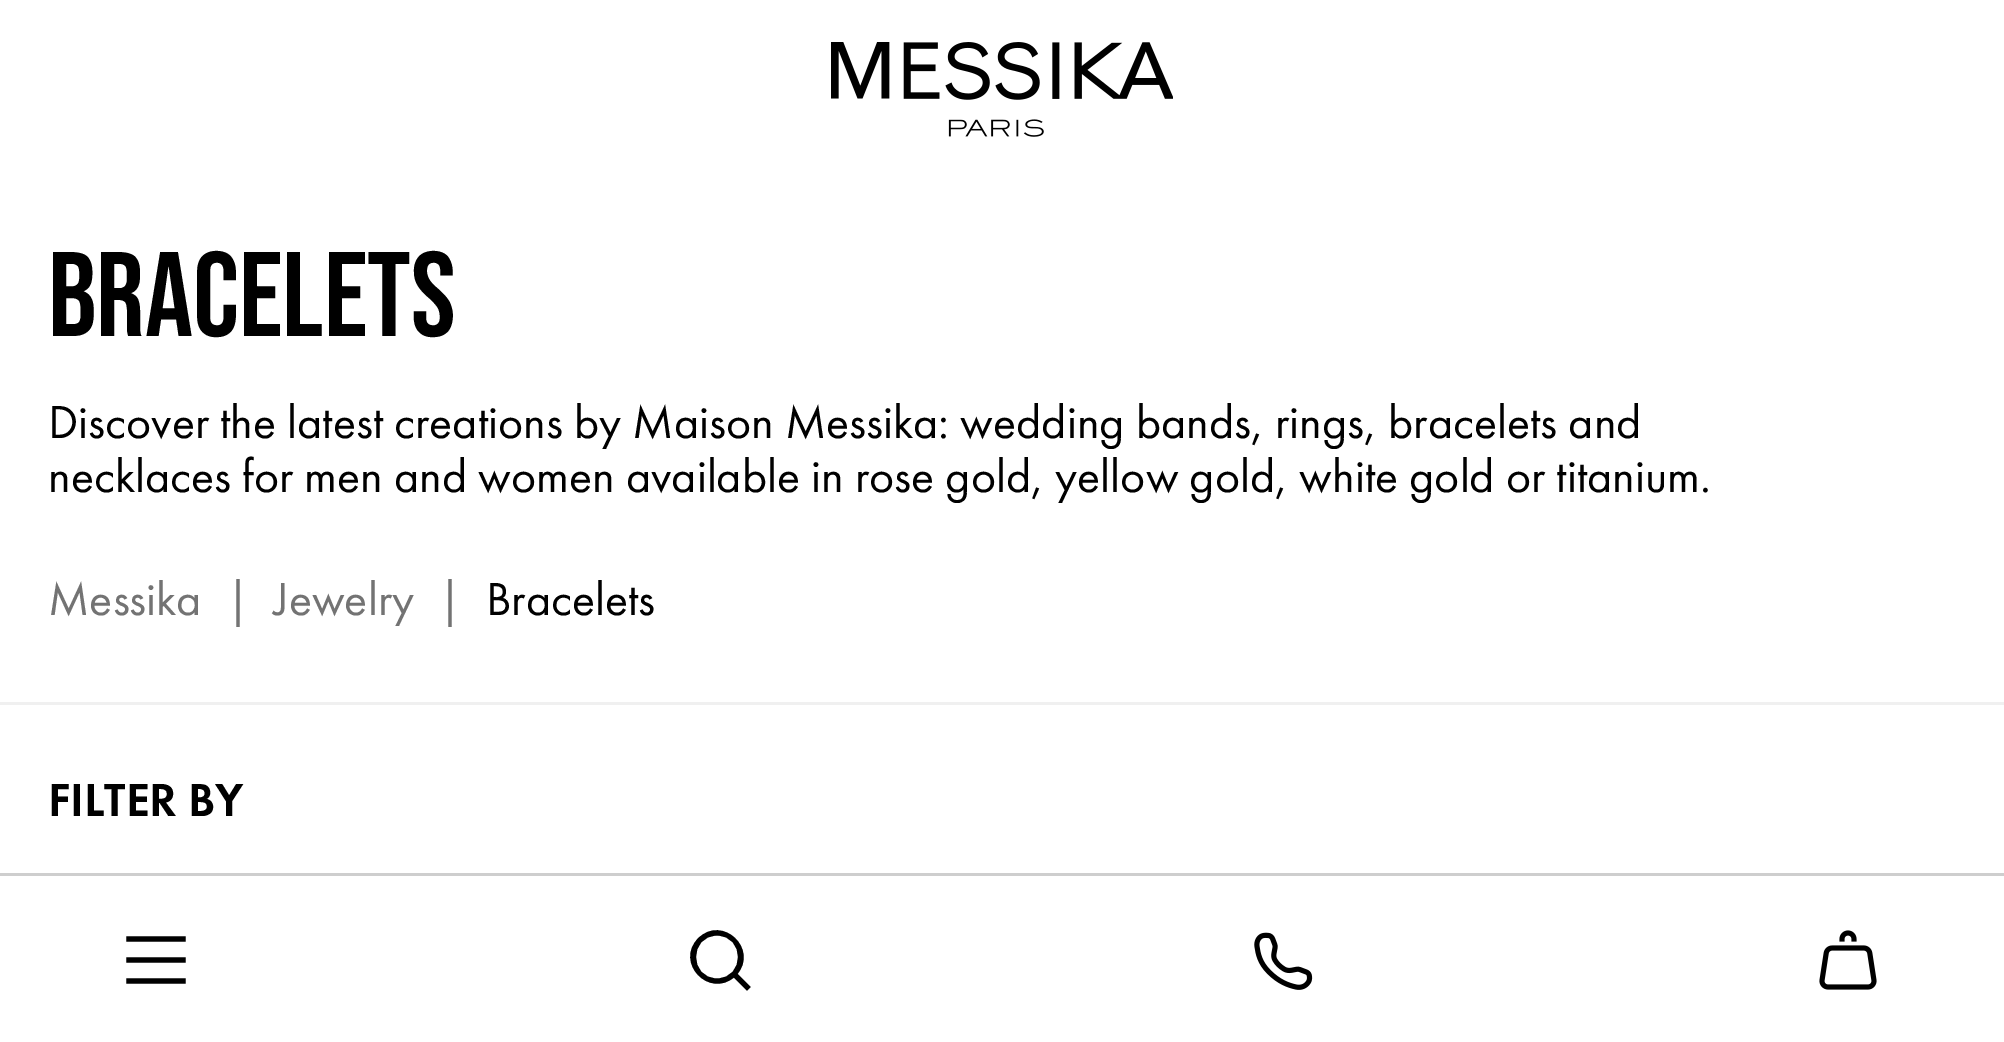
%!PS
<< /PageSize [2004 1042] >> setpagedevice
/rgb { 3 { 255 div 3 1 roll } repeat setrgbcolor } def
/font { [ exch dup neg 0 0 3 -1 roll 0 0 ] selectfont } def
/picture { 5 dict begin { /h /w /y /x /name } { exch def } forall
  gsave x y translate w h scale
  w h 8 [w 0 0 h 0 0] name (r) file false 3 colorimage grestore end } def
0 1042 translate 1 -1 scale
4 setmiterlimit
255 255 255 rgb
0 0 2004 1042 rectfill
(img/1.rgb) 831 42 342 95 picture
206 206 206 rgb
0 873 2004 3 rectfill
0 0 0 rgb
127 938 moveto 184 938 lineto 184 940 lineto 127 940 lineto closepath 127 958 moveto 184 958 lineto 184 961 lineto 127 961 lineto closepath 127 980 moveto 184 980 lineto 184 982 lineto 127 982 lineto closepath fill
2.2 setlinewidth
127.5 937.5 moveto 184.5 937.5 lineto 184.5 940.5 lineto 127.5 940.5 lineto closepath 127.5 958.5 moveto 184.5 958.5 lineto 184.5 961.5 lineto 127.5 961.5 lineto closepath 127.5 979.5 moveto 184.5 979.5 lineto 184.5 982.5 lineto 127.5 982.5 lineto closepath stroke
699 939 moveto 722 916 758 950 736 974 curveto 749 987 lineto 747 989 lineto 734 976 lineto 710 998 676 962 699 939 curveto closepath 717 935 moveto 687 935 687 980 717 980 curveto 747 980 747 935 717 935 curveto closepath fill
699 939 moveto 722 916 757.5 949.5 736 974 curveto 749 987 lineto 747 989 lineto 734 976 lineto 709.5 997.5 676 962 699 939 curveto closepath 717 934.5 moveto 687.5 934.5 687.5 979.5 717 979.5 curveto 746.5 979.5 746.5 934.5 717 934.5 curveto closepath stroke
(img/2.rgb) 1254 932 59 58 picture
(img/3.rgb) 1819 930 58 60 picture
240 240 240 rgb
0 702 2004 3 rectfill
/BebasNeue-Regular 120 font
0 0 0 rgb
48 336 moveto (Bracelets) show
/FuturaPT-Regular 48 font
48 438 moveto (Discover the latest creations by Maison Messika: wedding bands, rings, bracelets and) show
48 492 moveto (necklaces for men and women available in rose gold, yellow gold, white gold or titanium.) show
115 115 115 rgb
[
  [(Messika) 48 615]
  [(|) 226 615]
  [(Jewelry) 274 615]
  [(|) 438 615]
] { aload pop moveto show } forall
0 0 0 rgb
486 615 moveto (Bracelets) show
/FuturaPT-Medium 48 font
48 816 moveto (FILTER BY) show
showpage
